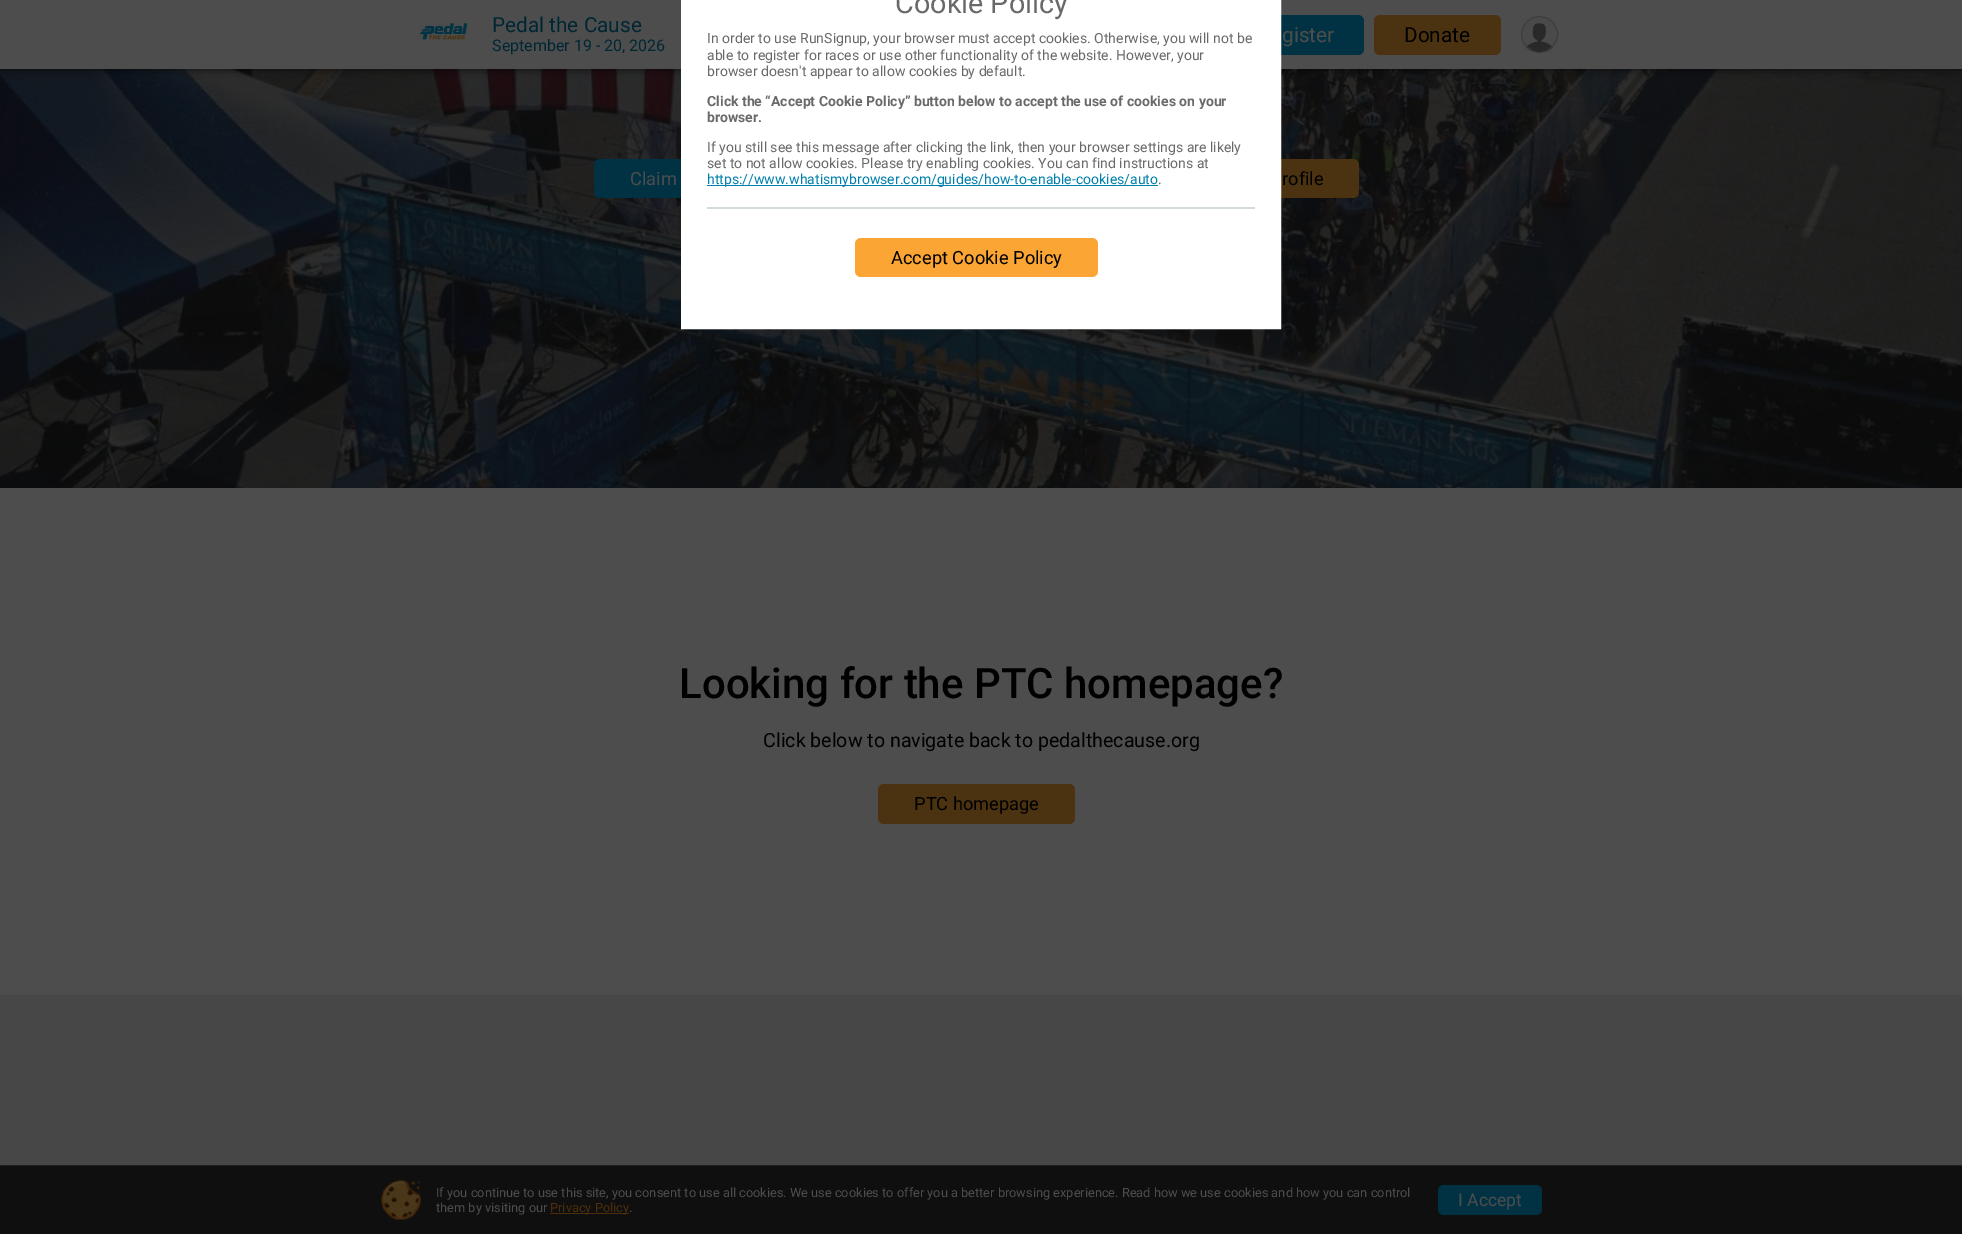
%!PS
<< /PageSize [1962 1234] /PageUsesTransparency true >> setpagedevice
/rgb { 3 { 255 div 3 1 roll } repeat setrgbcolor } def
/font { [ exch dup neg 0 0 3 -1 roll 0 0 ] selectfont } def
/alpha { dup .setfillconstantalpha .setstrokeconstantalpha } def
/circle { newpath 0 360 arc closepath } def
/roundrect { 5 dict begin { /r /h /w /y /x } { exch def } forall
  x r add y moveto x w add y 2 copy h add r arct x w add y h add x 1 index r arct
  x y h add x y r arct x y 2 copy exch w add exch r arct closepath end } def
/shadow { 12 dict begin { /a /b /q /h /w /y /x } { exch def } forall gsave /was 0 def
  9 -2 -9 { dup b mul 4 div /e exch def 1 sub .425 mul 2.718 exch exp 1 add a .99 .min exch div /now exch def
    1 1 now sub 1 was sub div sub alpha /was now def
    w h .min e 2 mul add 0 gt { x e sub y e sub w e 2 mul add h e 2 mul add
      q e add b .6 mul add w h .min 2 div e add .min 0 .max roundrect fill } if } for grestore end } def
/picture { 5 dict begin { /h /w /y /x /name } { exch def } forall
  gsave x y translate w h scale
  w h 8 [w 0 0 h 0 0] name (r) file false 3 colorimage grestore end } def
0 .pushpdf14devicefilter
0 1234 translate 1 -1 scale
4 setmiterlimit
77 77 77 rgb
0 0 1962 1234 rectfill
(img/3.rgb) 0 69 1962 419 picture
0 0 0 rgb
-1 -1 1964 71 0 4 0.6 shadow
77 77 77 rgb
0 0 1962 69 rectfill
0 50 68 rgb
1228 15 136 40 6 roundrect fill
594 159 414 39 6 roundrect fill
75 50 16 rgb
1021 159 338 39 6 roundrect fill
255 255 255 rgb
681.5 -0.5 599 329 rectstroke
[
  [682 0 598 328 255 255 255]
  [707 185 451 1 0 127 173]
  [707 207 548 2 211 219 223]
] { aload pop rgb rectfill } forall
250 165 52 rgb
855 238 243 39 6 roundrect fill
(img/1.rgb) 419 23 49 17 picture
75 50 16 rgb
1374 15 127 40 6 roundrect fill
(img/2.rgb) 1522 17 35 35 picture
61 61 61 rgb
1539.5 34.5 18 circle stroke
75 50 16 rgb
878 784 197 40 6 roundrect fill
[
  [0 995 1962 170 71 71 71]
  [0 1166 1962 68 15 15 15]
  [0 1165 1962 1 31 31 31]
] { aload pop rgb rectfill } forall
(img/4.rgb) 381 1180 40 40 picture
76 46 11 rgb
550 1213 79 1 rectfill
0 50 68 rgb
1438 1185 104 30 6 roundrect fill
/Roboto-Regular 28.75 font
105 105 105 rgb
895 13 moveto (Cookie Policy) show
/Roboto-Regular 14 font
[
  [(In order to use RunSignup, your browser must accept cookies. Otherwise, you will not be) 707 43]
  [(able to register for races or use other functionality of the website. However, your) 707 60]
  [(browser doesn't appear to allow cookies by default.) 707 76]
] { aload pop moveto show } forall
/Roboto-Bold 14 font
707 106 moveto (Click the “Accept Cookie Policy” button below to accept the use of cookies on your) show
707 122 moveto (browser.) show
/Roboto-Regular 14 font
707 152 moveto (If you still see this message after clicking the link, then your browser settings are likely) show
707 168 moveto (set to not allow cookies. Please try enabling cookies. You can find instructions at) show
0 127 173 rgb
707 184 moveto (https://www.whatismybrowser.com/guides/how-to-enable-cookies/auto) show
105 105 105 rgb
1158 184 moveto (.) show
/Roboto-Regular 18.25 font
0 0 0 rgb
891 264 moveto (Accept Cookie Policy) show
/Roboto-Regular 20.75 font
0 38 52 rgb
492 32 moveto (Pedal the Cause) show
/Roboto-Regular 16 font
492 51 moveto (September 19 - 20, 2026) show
/Roboto-Regular 20.75 font
77 77 77 rgb
1282 42 moveto (gister) show
0 0 0 rgb
1404 42 moveto (Donate) show
/Roboto-Regular 18.25 font
77 77 77 rgb
630 185 moveto (Claim) show
0 0 0 rgb
1282 185 moveto (rofile) show
/Roboto-Medium 42 font
679 698 moveto (Looking for the PTC homepage?) show
/Roboto-Regular 19.6 font
763 747 moveto (Click below to navigate back to pedalthecause.org) show
/Roboto-Regular 18.25 font
914 810 moveto (PTC homepage) show
/Roboto-Regular 12.8 font
77 77 77 rgb
436 1197 moveto (If you continue to use this site, you consent to use all cookies. We use cookies to offer you a better browsing experience. Read how we use cookies and how you can control) show
436 1212 moveto (them by visiting our) show
76 46 11 rgb
550 1212 moveto (Privacy Policy) show
77 77 77 rgb
629 1212 moveto (.) show
/Roboto-Regular 17.5 font
1458 1206 moveto (I Accept) show
.poppdf14devicefilter showpage
